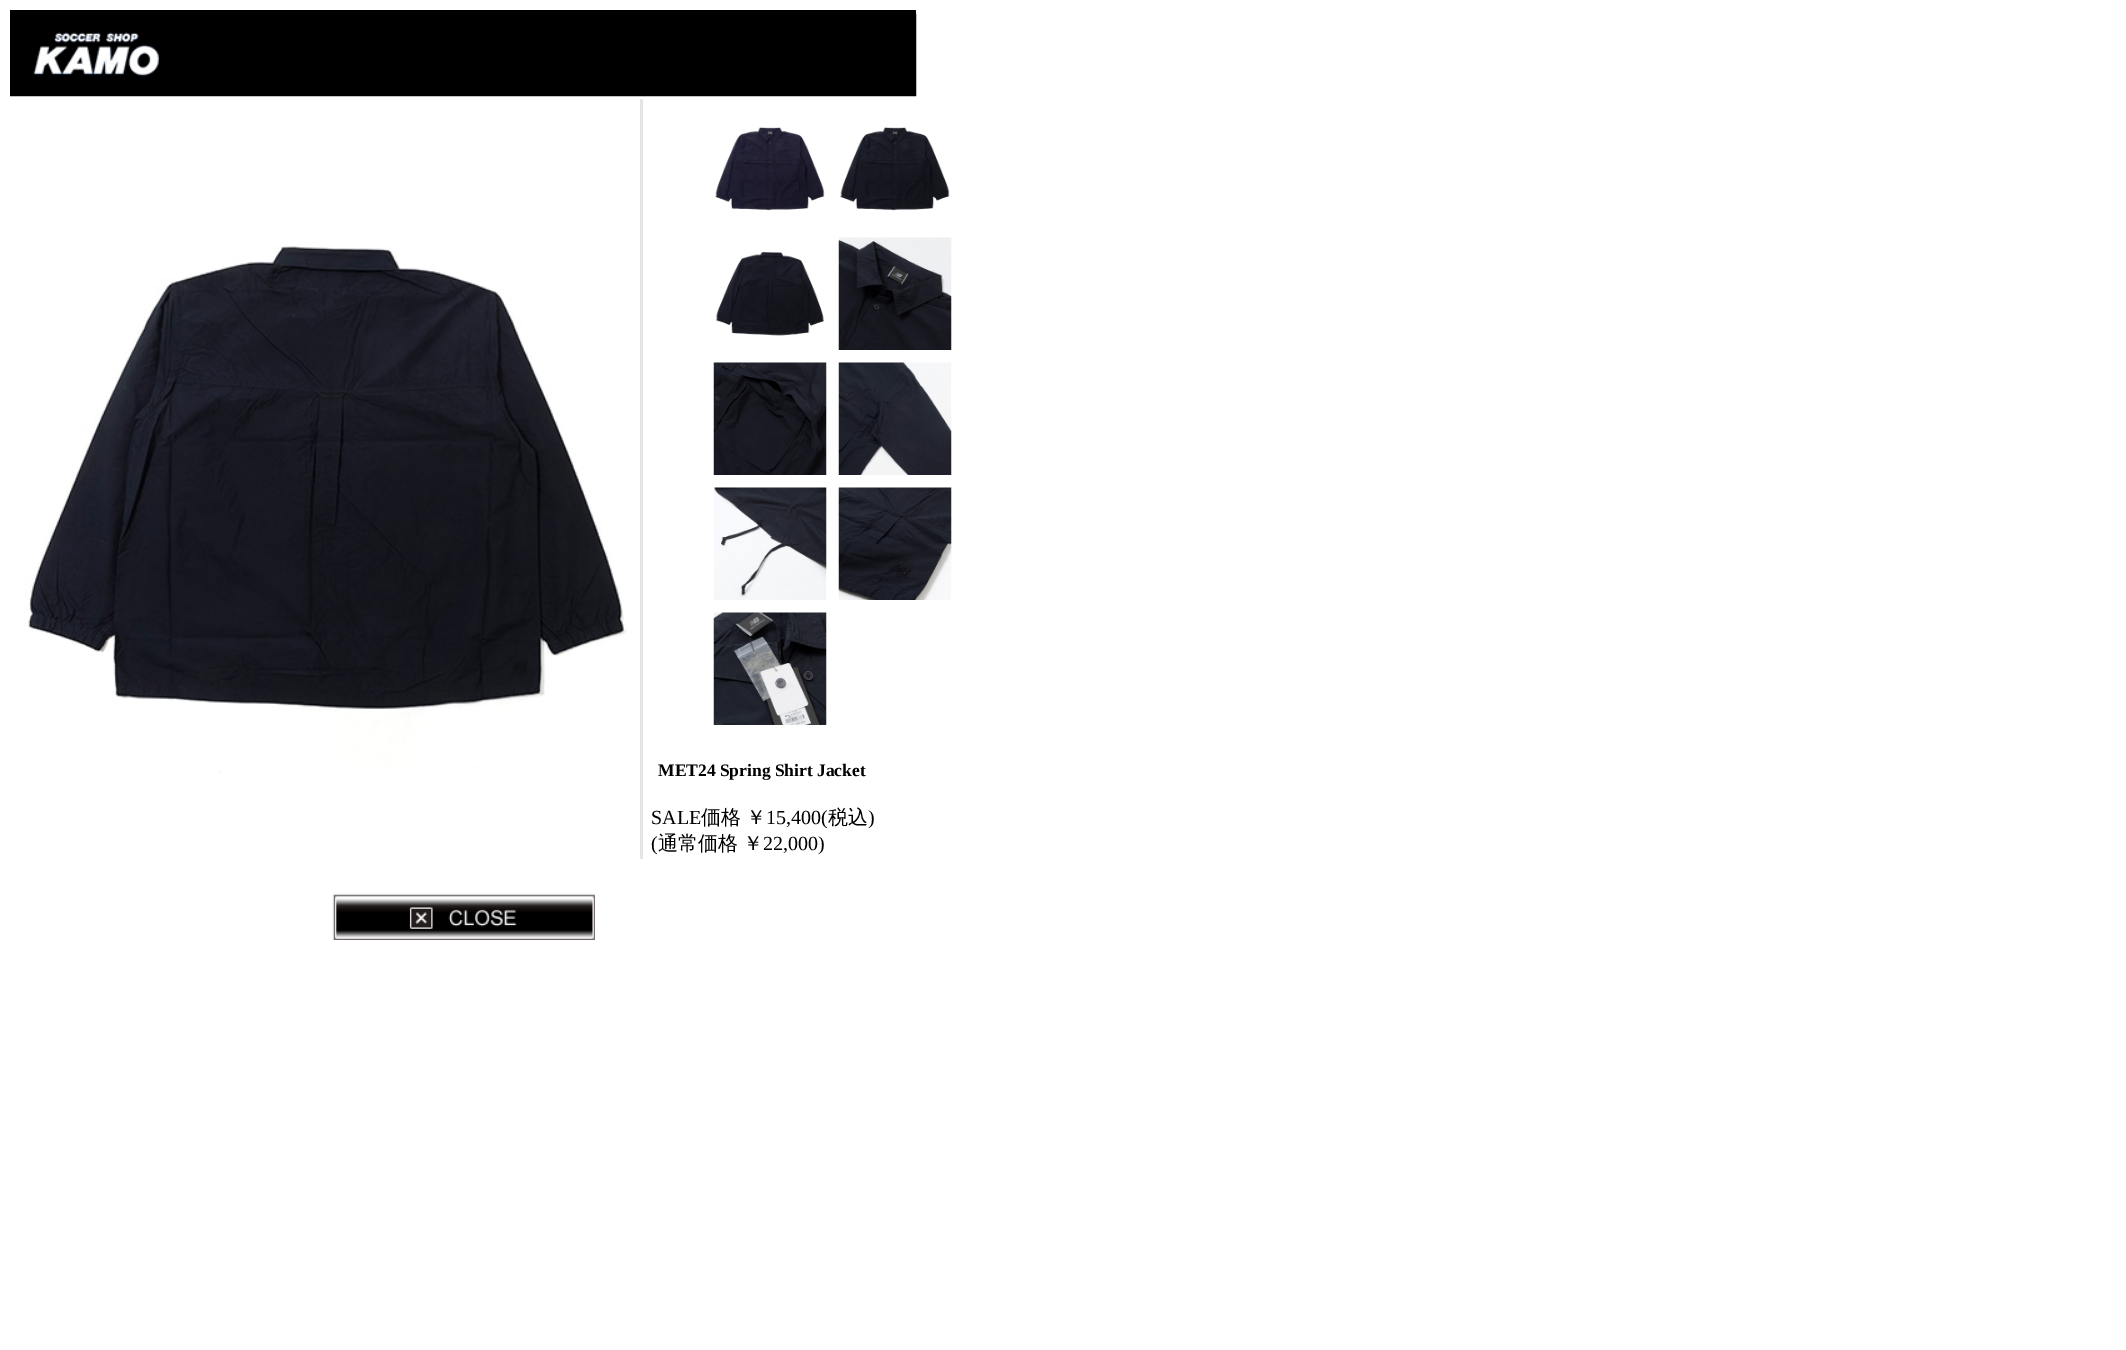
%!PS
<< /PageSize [2126 1350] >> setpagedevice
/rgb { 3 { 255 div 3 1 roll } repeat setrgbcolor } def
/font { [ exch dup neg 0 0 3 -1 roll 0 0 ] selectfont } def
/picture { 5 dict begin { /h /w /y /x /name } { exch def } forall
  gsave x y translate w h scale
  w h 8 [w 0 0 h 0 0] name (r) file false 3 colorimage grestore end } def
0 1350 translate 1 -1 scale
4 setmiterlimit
255 255 255 rgb
0 0 2126 1350 rectfill
0 0 0 rgb
10 10 906 4 rectfill
(img/1.rgb) 10 13 907 84 picture
229 229 229 rgb
640 99 3 760 rectfill
(img/2.rgb) 24 246 603 528 picture
(img/3.rgb) 715 127 110 84 picture
(img/4.rgb) 840 127 110 84 picture
(img/5.rgb) 716 252 108 85 picture
(img/6.rgb) 838 237 114 113 picture
(img/7.rgb) 713 362 114 113 picture
(img/8.rgb) 838 362 114 113 picture
(img/9.rgb) 713 487 114 113 picture
(img/10.rgb) 838 487 114 113 picture
(img/11.rgb) 713 612 114 113 picture
(img/12.rgb) 332 893 263 47 picture
/LiberationSerif-Bold 17.5 font
0 0 0 rgb
658 776 moveto (MET24 Spring Shirt Jacket) show
/LiberationSerif-Regular 20 font
651 824 moveto (SALE) show
/WenQuanYiZenHei-Medium 20 font
701 824 moveto (価格) show
746 824 moveto (￥) show
/LiberationSerif-Regular 20 font
766 824 moveto (15,400\() show
/WenQuanYiZenHei-Medium 20 font
828 824 moveto (税込) show
/LiberationSerif-Regular 20 font
868 824 moveto (\)) show
651 850 moveto (\() show
/WenQuanYiZenHei-Medium 20 font
658 850 moveto -1 0 32 (通常価格 ￥) widthshow
/LiberationSerif-Regular 20 font
763 850 moveto (22,000\)) show
showpage
